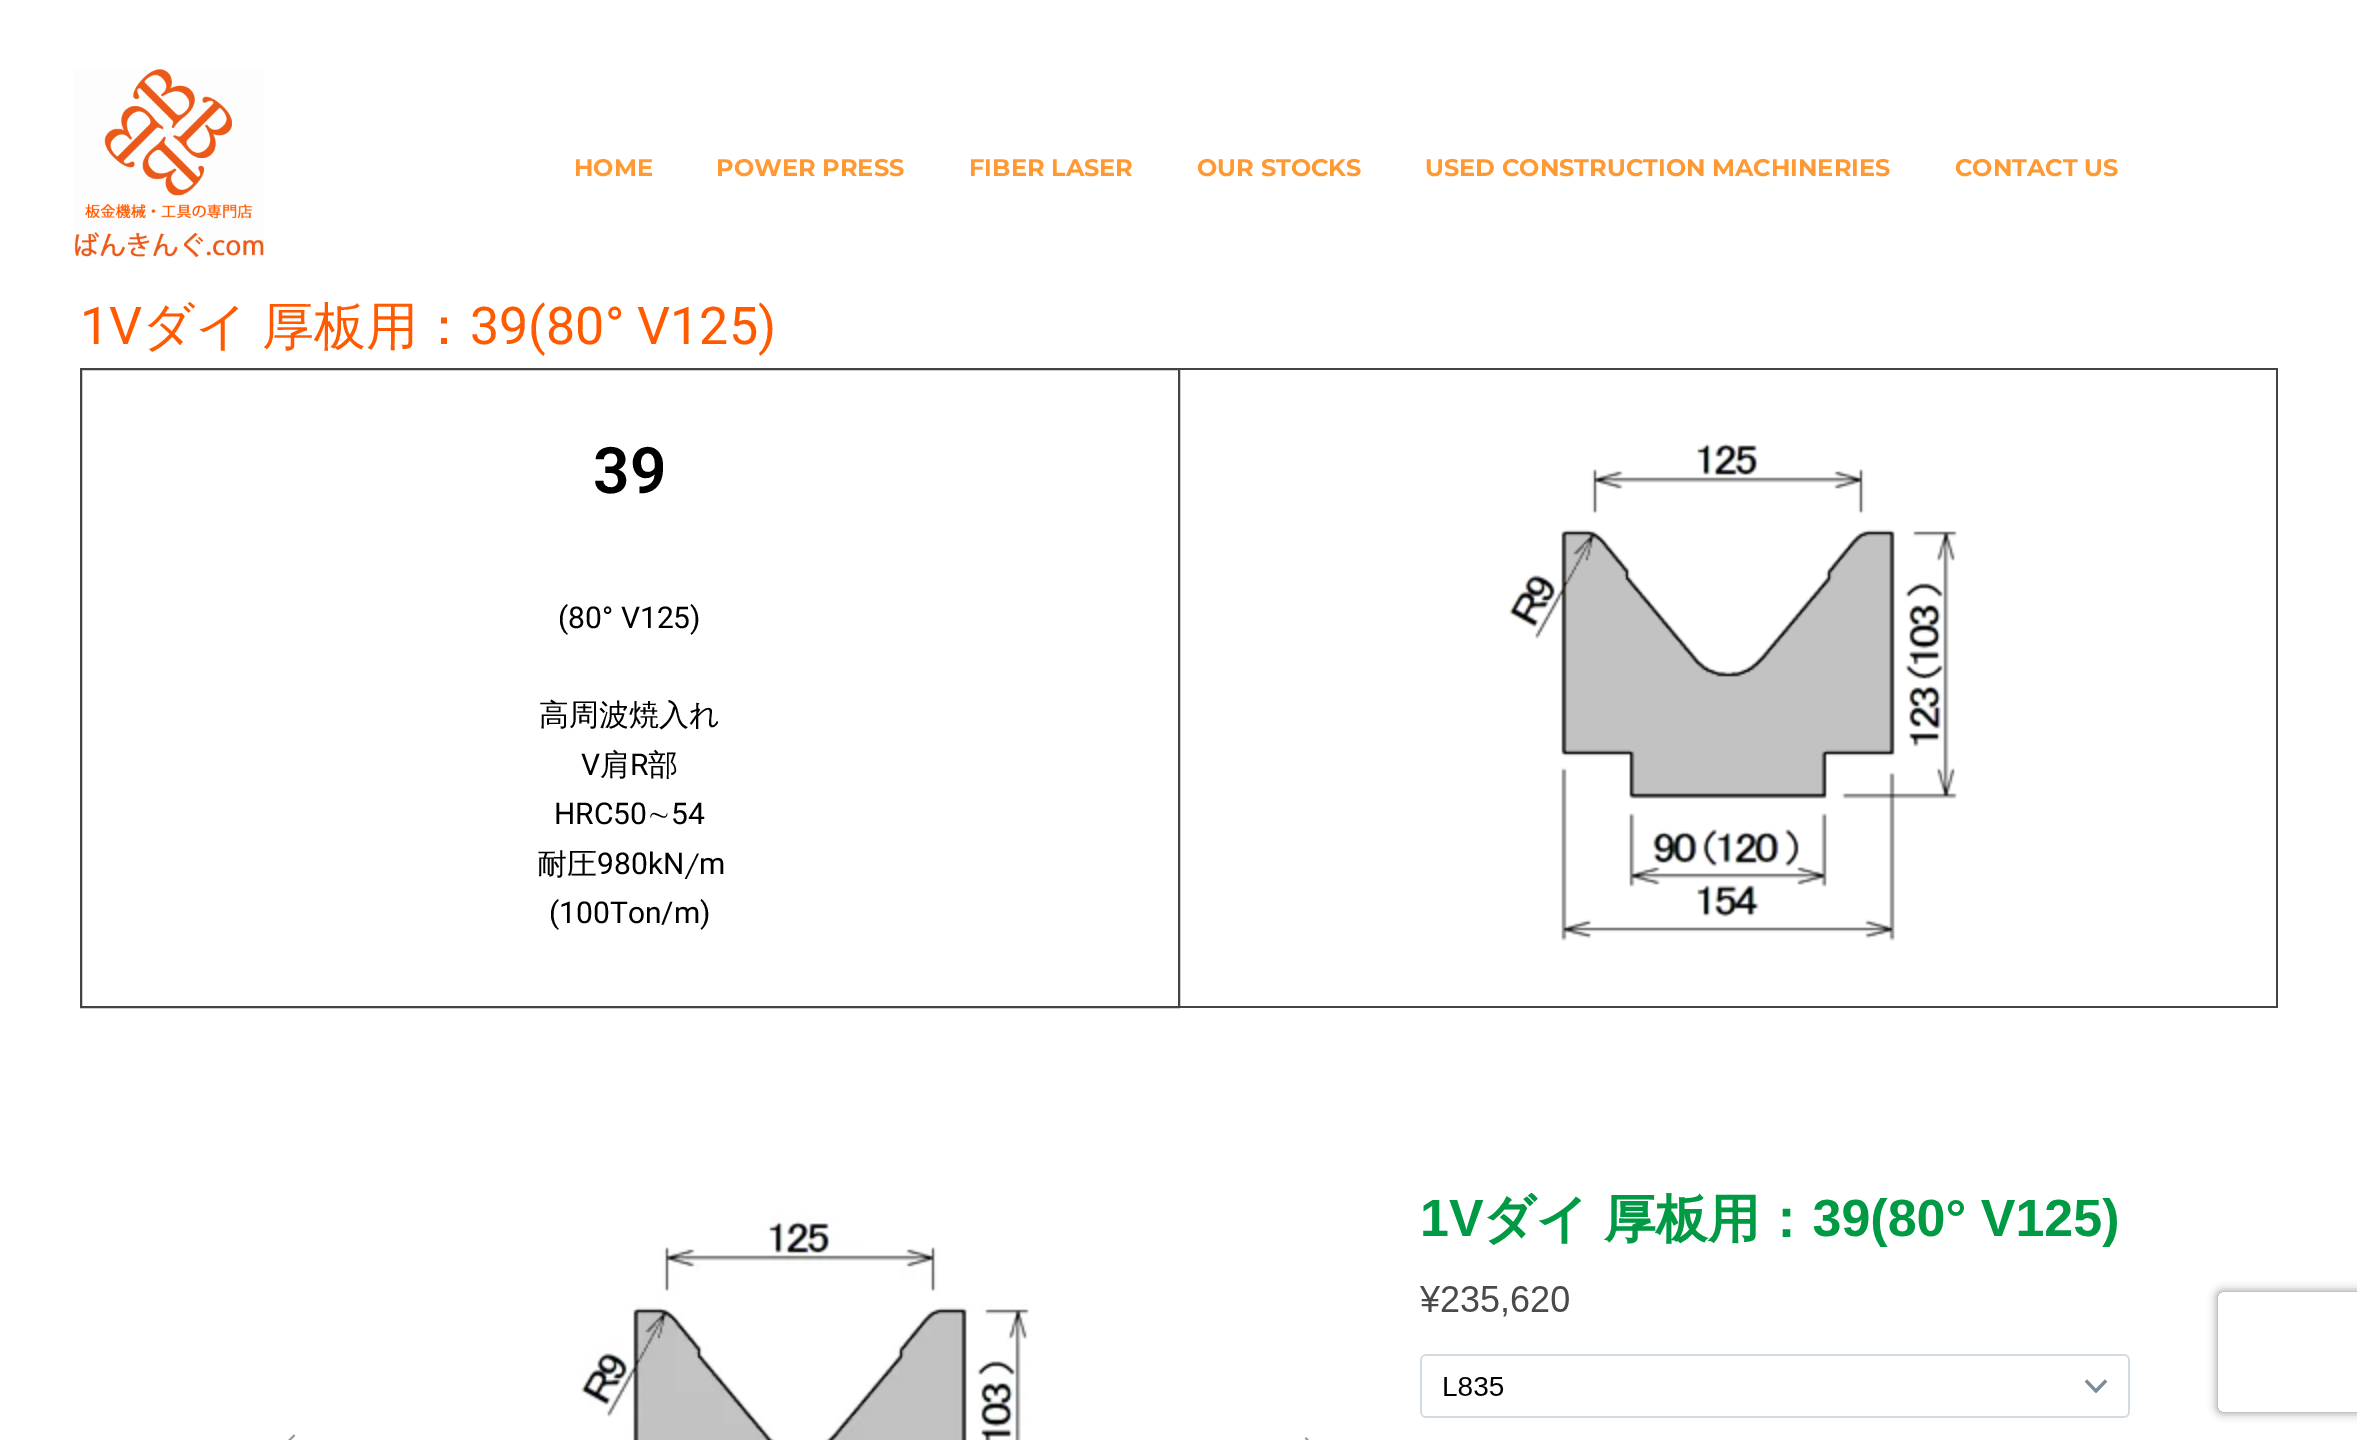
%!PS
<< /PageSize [2357 1440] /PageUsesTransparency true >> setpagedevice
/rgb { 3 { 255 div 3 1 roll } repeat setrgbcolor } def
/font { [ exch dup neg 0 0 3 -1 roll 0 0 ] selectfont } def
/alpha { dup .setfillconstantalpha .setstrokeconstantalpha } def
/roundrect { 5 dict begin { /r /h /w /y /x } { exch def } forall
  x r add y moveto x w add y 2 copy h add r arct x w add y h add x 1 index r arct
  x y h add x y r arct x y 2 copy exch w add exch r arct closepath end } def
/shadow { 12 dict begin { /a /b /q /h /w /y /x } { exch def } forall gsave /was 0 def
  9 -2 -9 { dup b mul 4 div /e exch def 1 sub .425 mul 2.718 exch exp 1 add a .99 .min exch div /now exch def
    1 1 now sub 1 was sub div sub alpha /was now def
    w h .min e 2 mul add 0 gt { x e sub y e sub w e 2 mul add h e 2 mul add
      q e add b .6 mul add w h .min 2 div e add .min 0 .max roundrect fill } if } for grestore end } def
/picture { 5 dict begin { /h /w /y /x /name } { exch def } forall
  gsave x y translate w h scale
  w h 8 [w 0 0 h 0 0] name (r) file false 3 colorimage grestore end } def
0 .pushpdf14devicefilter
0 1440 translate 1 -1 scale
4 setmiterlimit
255 255 255 rgb
0 0 2357 1440 rectfill
(img/1.rgb) 74 69 190 189 picture
68 68 68 rgb
2 setlinewidth
81 369 1098 638 rectstroke
[
  [1180 368 1098 2 68 68 68]
  [2276 368 2 640 68 68 68]
  [1180 1006 1098 2 68 68 68]
] { aload pop rgb rectfill } forall
(img/2.rgb) 1509 443 448 498 picture
(img/3.rgb) 288 1192 1842 248 picture
gsave
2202 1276 moveto 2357 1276 lineto 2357 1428 lineto 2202 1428 lineto closepath 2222 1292 moveto 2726 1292 lineto 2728 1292 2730 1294 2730 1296 curveto 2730 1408 lineto 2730 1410 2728 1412 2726 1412 curveto 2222 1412 lineto 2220 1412 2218 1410 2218 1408 curveto 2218 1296 lineto 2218 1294 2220 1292 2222 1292 curveto closepath eoclip newpath
128 128 128 rgb
2218 1292 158 120 4 5 1 shadow
grestore
/Montserrat-Bold 24 font
255 153 51 rgb
[
  [(HOME) 574 176]
  [(POWER PRESS) 716 176]
  [(FIBER LASER) 969 176]
  [(OUR STOCKS) 1197 176]
  [(USED CONSTRUCTION MACHINERIES) 1425 176]
  [(CONTACT US) 1955 176]
] { aload pop moveto show } forall
/Roboto-Regular 52 font
255 90 0 rgb
80 344 moveto (1V) show
/WenQuanYiZenHei-Medium 52 font
142 344 moveto (ダイ) show
262 344 moveto (厚板用：) show
/Roboto-Regular 52 font
470 344 moveto (39\(80° V125\)) show
/Roboto-SemiBold 64 font
0 0 0 rgb
593 493 moveto (39) show
/Roboto-Regular 30 font
558 628 moveto (\(80° V125\)) show
/WenQuanYiZenHei-Medium 30 font
539 725 moveto (高周波焼入れ) show
/Roboto-Regular 30 font
581 775 moveto (V) show
/WenQuanYiZenHei-Medium 30 font
600 775 moveto (肩) show
/Roboto-Regular 30 font
630 775 moveto (R) show
/WenQuanYiZenHei-Medium 30 font
648 775 moveto (部) show
/Roboto-Regular 30 font
554 824 moveto (HRC50) show
/WenQuanYiZenHei-Medium 30 font
647 824 moveto (∼) show
/Roboto-Regular 30 font
671 824 moveto (54) show
/WenQuanYiZenHei-Medium 30 font
537 874 moveto (耐圧) show
/Roboto-Regular 30 font
597 874 moveto (980kN) show
/WenQuanYiZenHei-Medium 30 font
684 874 moveto (/) show
/Roboto-Regular 30 font
699 874 moveto (m) show
549 923 moveto (\(100Ton/m\)) show
.poppdf14devicefilter showpage
